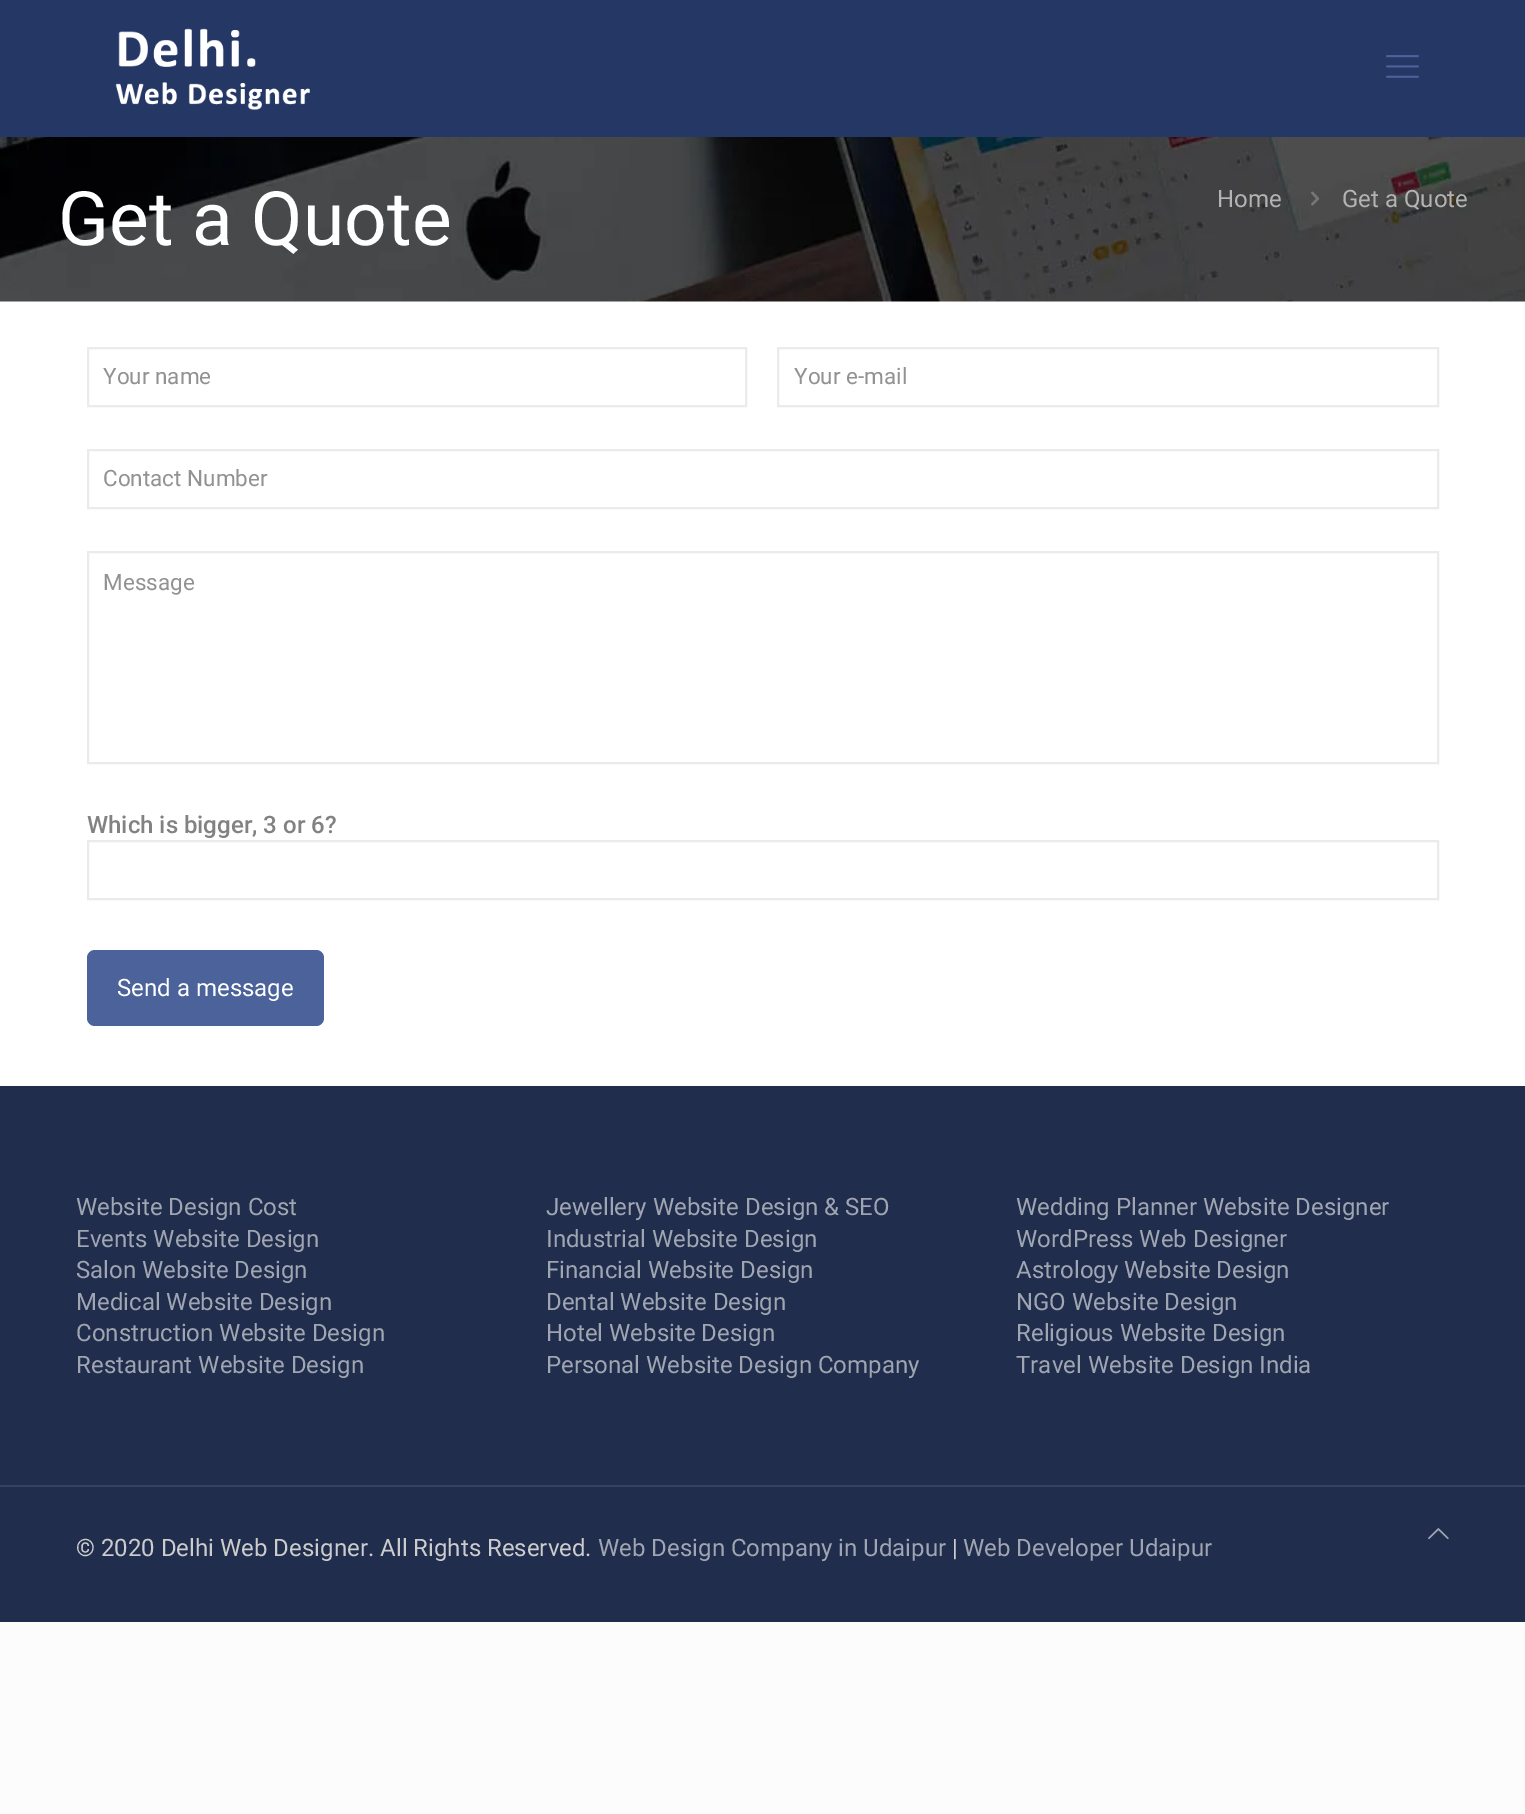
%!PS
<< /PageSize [1525 1814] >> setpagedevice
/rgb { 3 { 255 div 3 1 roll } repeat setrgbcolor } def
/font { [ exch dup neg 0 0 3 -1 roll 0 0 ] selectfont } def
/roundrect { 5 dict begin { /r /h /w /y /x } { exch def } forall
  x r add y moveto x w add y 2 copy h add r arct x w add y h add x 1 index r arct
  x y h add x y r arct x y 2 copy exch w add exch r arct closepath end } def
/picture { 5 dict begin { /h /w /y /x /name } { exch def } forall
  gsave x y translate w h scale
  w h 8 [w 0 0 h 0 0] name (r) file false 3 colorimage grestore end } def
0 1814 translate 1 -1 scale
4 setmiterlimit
252 252 252 rgb
0 0 1525 1814 rectfill
255 255 255 rgb
0 301 1525 785 rectfill
(img/1.rgb) 0 137 1525 165 picture
37 55 100 rgb
0 0 1525 137 rectfill
(img/2.rgb) 115 28 195 82 picture
(img/3.rgb) 1386 55 33 23 picture
(img/4.rgb) 1311 191 9 15 picture
235 235 235 rgb
2 setlinewidth
88 348 658 58 rectstroke
778 348 660 58 rectstroke
88 450 1350 58 rectstroke
88 552 1350 211 rectstroke
88 841 1350 58 rectstroke
76 98 155 rgb
87 950 237 76 8 roundrect fill
32 45 76 rgb
0 1086 1525 536 rectfill
54 66 94 rgb
0 1485 1525 2 rectfill
(img/5.rgb) 1428 1528 21 12 picture
/Roboto-Regular 75 font
255 255 255 rgb
58 245 moveto (Get a Quote) show
/Roboto-Regular 24 font
179 179 180 rgb
1217 207 moveto (Home) show
1342 207 moveto (Get a Quote) show
/Roboto-Regular 22.5 font
146 146 146 rgb
[
  [(Your name) 103 384]
  [(Your e-mail) 794 384]
  [(Contact Number) 103 486]
  [(Message) 103 590]
] { aload pop moveto show } forall
/Roboto-Medium 24 font
130 130 130 rgb
87 833 moveto (Which is bigger, 3 or 6?) show
/Roboto-Regular 24 font
255 255 255 rgb
117 996 moveto (Send a message) show
160 165 178 rgb
[
  [(Website Design Cost) 76 1215]
  [(Events Website Design) 76 1247]
  [(Salon Website Design) 76 1278]
  [(Medical Website Design) 76 1310]
  [(Construction Website Design) 76 1341]
  [(Restaurant Website Design) 76 1373]
  [(Jewellery Website Design & SEO) 546 1215]
  [(Industrial Website Design) 546 1247]
  [(Financial Website Design) 546 1278]
  [(Dental Website Design) 546 1310]
  [(Hotel Website Design) 546 1341]
  [(Personal Website Design Company) 546 1373]
  [(Wedding Planner Website Designer) 1016 1215]
  [(WordPress Web Designer) 1016 1247]
  [(Astrology Website Design) 1016 1278]
  [(NGO Website Design) 1016 1310]
  [(Religious Website Design) 1016 1341]
  [(Travel Website Design India) 1016 1373]
] { aload pop moveto show } forall
204 204 204 rgb
76 1556 moveto (© 2020 Delhi Web Designer. All Rights Reserved.) show
160 165 178 rgb
598 1556 moveto (Web Design Company in Udaipur) show
204 204 204 rgb
952 1556 moveto (|) show
160 165 178 rgb
963 1556 moveto (Web Developer Udaipur) show
showpage
